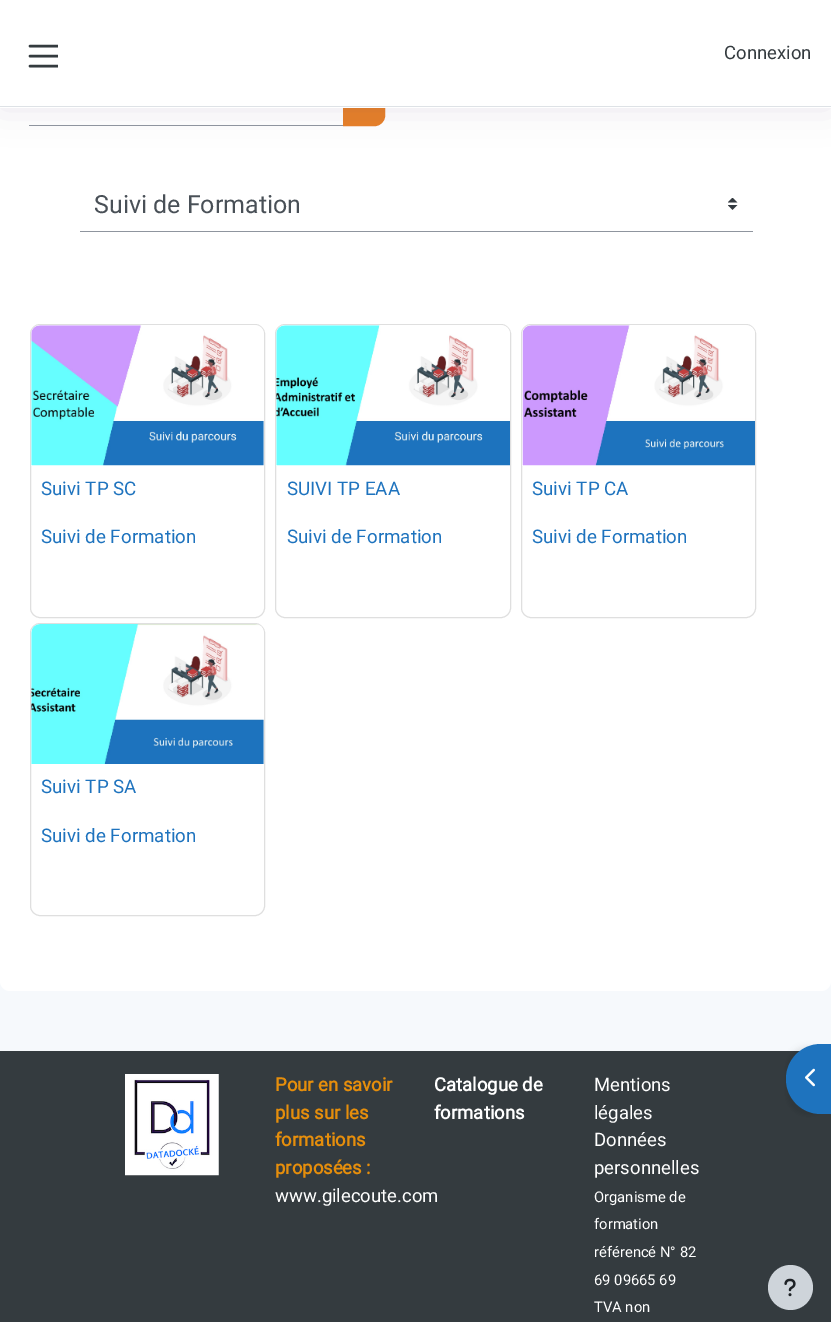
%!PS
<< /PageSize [831 1322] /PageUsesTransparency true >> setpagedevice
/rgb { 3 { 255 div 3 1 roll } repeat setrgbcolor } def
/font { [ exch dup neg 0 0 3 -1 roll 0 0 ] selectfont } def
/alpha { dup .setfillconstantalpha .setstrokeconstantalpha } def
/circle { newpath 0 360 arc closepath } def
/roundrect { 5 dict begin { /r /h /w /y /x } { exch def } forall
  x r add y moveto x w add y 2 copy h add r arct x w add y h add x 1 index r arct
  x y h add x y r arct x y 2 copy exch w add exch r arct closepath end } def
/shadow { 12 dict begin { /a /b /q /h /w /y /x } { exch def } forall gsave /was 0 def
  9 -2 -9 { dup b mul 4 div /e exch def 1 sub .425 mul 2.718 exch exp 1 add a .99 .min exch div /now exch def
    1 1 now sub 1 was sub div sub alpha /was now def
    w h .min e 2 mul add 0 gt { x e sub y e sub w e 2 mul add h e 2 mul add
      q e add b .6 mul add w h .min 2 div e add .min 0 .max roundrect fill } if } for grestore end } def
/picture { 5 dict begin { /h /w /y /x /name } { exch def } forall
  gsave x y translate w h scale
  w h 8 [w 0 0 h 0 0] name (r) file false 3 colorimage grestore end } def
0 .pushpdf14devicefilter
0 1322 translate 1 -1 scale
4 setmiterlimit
246 249 252 rgb
0 0 831 1322 rectfill
255 255 255 rgb
0 -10 831 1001 10 roundrect fill
143 149 158 rgb
29 125 315 1 rectfill
231 127 40 rgb
343.5 71.5 moveto 375 71.5 lineto 380 71.5 384.5 76 384.5 81 curveto 384.5 116 lineto 384.5 121 380 125.5 375 125.5 curveto 343.5 125.5 lineto closepath gsave fill grestore
stroke
86 61 124 rgb
0 0 831 108 0 17.5 0.13 shadow
255 255 255 rgb
0 0 831 108 rectfill
222 226 230 rgb
0 106 831 1 rectfill
gsave
25 38 33 31 rectclip
52 59 63 rgb
2.5 setlinewidth
1 setlinecap
30 46 moveto 57.5 46 lineto 30 56 moveto 57.5 56 lineto 30 66 moveto 57.5 66 lineto stroke
grestore
(img/1.rgb) 728 198 10 12 picture
143 149 158 rgb
80 231 673 1 rectfill
223 223 223 rgb
30.5 324.5 234 293 9.5 roundrect stroke
(img/2.rgb) 31 325 233 141 picture
275.5 324.5 235 293 9.5 roundrect stroke
(img/3.rgb) 276 325 234 141 picture
521.5 324.5 234 293 9.5 roundrect stroke
(img/4.rgb) 522 325 233 141 picture
30.5 623.5 234 292 9.5 roundrect stroke
(img/5.rgb) 31 624 233 140 picture
52 59 63 rgb
0 1051 831 271 rectfill
0 0 0 rgb
786 1046 45 70 35 2.5 0.07 shadow
30 115 190 rgb
821 1044 moveto 831 1044 lineto 831 1114 lineto 821 1114 lineto 801.5 1114 786 1098.5 786 1079 curveto 786 1059.5 801.5 1044 821 1044 curveto closepath fill
(img/6.rgb) 805 1068 10 19 picture
(img/7.rgb) 125 1074 94 102 picture
206 212 218 rgb
790.5 1287.5 22.5 circle fill
(img/8.rgb) 784 1278 12 19 picture
/Roboto-Regular 18.5 font
52 59 63 rgb
724 59 moveto (Connexion) show
/Roboto-Regular 25 font
73 80 87 rgb
94 213 moveto (Suivi de Formation) show
/Roboto-Regular 18.75 font
30 115 190 rgb
[
  [(Suivi TP SC) 41 495]
  [(Suivi de Formation) 41 543]
  [(SUIVI TP EAA) 287 495]
  [(Suivi de Formation) 287 543]
  [(Suivi TP CA) 532 495]
  [(Suivi de Formation) 532 543]
  [(Suivi TP SA) 41 793]
  [(Suivi de Formation) 41 842]
] { aload pop moveto show } forall
/Roboto-Bold 18.5 font
230 142 11 rgb
[
  [(Pour en savoir) 275 1091]
  [(plus sur les) 275 1119]
  [(formations) 275 1146]
  [(proposées :) 275 1174]
] { aload pop moveto show } forall
/Roboto-Regular 18.5 font
255 255 255 rgb
275 1202 moveto (www.gilecoute.com) show
/Roboto-Bold 18.5 font
434 1091 moveto (Catalogue de) show
434 1119 moveto (formations) show
/Roboto-Regular 18.5 font
[
  [(Mentions) 594 1091]
  [(légales) 594 1119]
  [(Données) 594 1146]
  [(personnelles) 594 1174]
] { aload pop moveto show } forall
/Roboto-Regular 14.75 font
[
  [(Organisme de) 594 1202]
  [(formation) 594 1229]
  [(référencé N° 82) 594 1257]
  [(69 09665 69) 594 1285]
  [(TVA non) 594 1312]
] { aload pop moveto show } forall
.poppdf14devicefilter showpage
